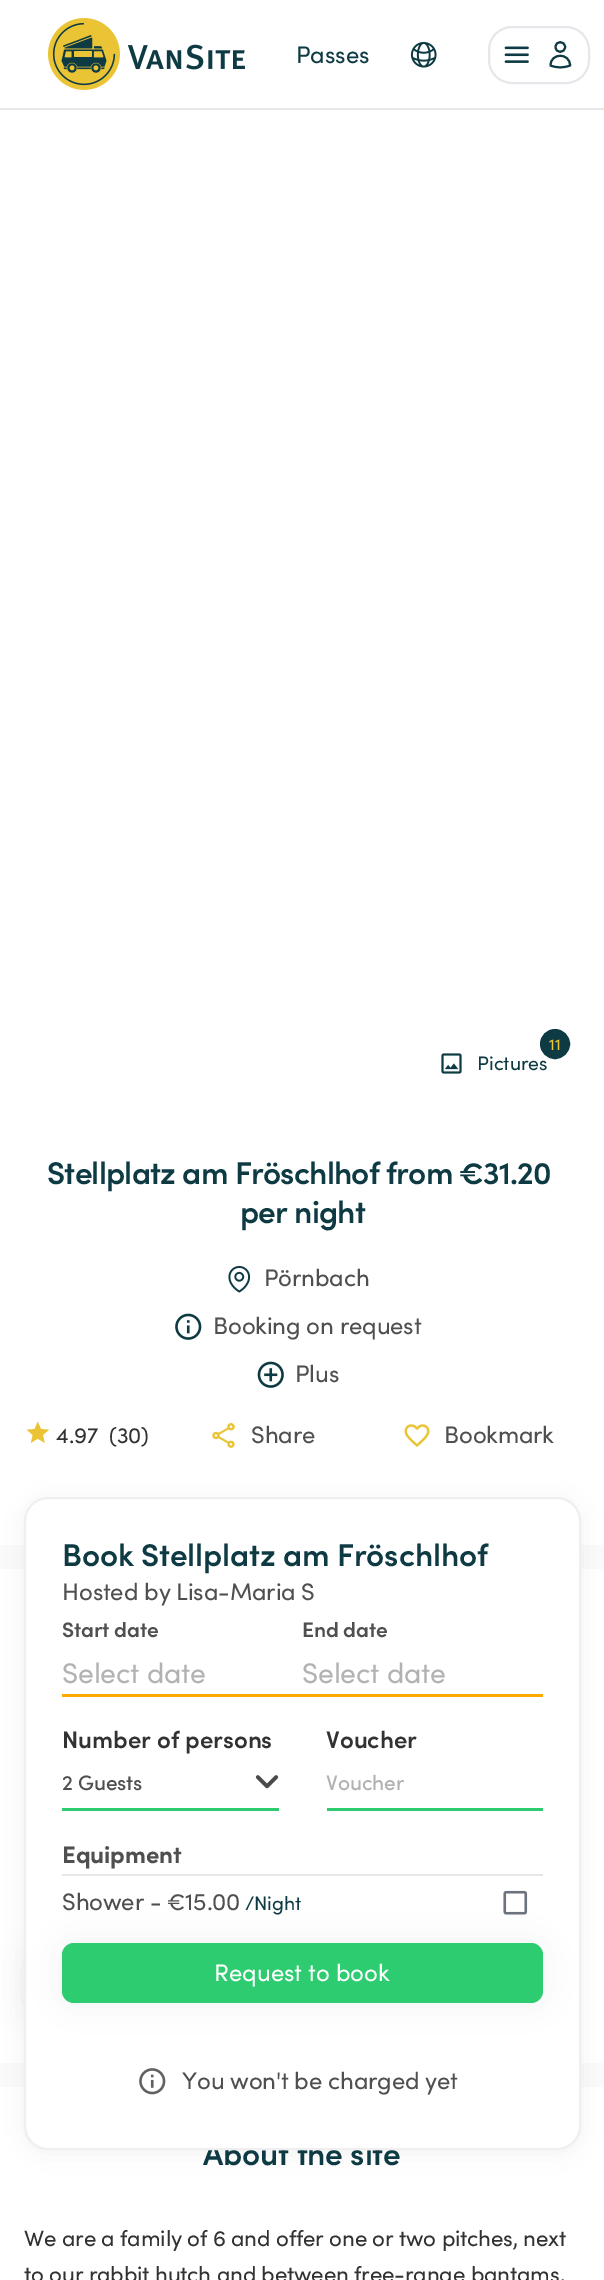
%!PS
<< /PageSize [604 2280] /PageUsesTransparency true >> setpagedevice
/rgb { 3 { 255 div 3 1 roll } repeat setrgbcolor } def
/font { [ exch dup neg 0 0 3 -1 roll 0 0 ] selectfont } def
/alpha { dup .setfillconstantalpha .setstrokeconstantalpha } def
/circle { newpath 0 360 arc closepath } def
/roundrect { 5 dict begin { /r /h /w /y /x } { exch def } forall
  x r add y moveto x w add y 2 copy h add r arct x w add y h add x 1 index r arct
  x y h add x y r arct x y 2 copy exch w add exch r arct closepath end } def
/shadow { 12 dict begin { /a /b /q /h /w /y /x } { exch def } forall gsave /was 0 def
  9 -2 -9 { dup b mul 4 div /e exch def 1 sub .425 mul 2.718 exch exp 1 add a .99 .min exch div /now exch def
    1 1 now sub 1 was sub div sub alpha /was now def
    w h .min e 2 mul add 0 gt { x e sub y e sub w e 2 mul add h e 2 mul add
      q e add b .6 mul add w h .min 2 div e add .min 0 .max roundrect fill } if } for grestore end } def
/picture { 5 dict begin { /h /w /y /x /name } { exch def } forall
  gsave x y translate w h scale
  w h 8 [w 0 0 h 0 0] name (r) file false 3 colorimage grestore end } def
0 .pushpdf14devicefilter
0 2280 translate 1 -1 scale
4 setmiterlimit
255 255 255 rgb
0 0 604 2280 rectfill
229 231 235 rgb
0 108 604 2 rectfill
(img/1.rgb) 48 18 197 72 picture
(img/2.rgb) 410 41 27 27 picture
2 setlinewidth
489 27 100 56 23 roundrect stroke
(img/3.rgb) 504 46 25 17 picture
14 59 67 rgb
565 47 moveto 565 53.5 555.5 53.5 555.5 47 curveto 555.5 40.5 565 40.5 565 47 curveto closepath 550.5 65.5 moveto 550.5 52.5 570 52.5 570 65.5 curveto 564 68 556.5 68 550.5 65.5 curveto closepath stroke
(img/4.rgb) 441 1053 21 21 picture
555 1044 13.5 circle gsave fill grestore
3 setlinewidth
stroke
(img/5.rgb) 228 1265 23 28 picture
(img/6.rgb) 175 1313 27 27 picture
(img/7.rgb) 257 1361 27 27 picture
(img/8.rgb) 26 1421 24 22 picture
(img/9.rgb) 212 1423 23 25 picture
(img/10.rgb) 404 1424 26 23 picture
250 250 250 rgb
0 1545 604 24 rectfill
0 2063 604 24 rectfill
0 0 0 rgb
24 1500 557 653 24 12 0.06 shadow
24 1952 231 63 12 18 0.06 shadow
/Sofia-Regular 24 font
14 59 67 rgb
296 63 moveto -0.15 0 (Passes) ashow
/Sofia-Medium 16 font
234 196 53 rgb
549 1050 moveto (11) show
/Sofia-Regular 19.5 font
14 59 67 rgb
477 1070 moveto (Pictures) show
/Sofia-SemiBold 31.5 font
47 1184 moveto -0.75 0 (Stellplatz am Fröschlhof from €31.20) ashow
240 1223 moveto -0.75 0 (per night) ashow
/Sofia-Regular 24 font
79 79 79 rgb
264 1286 moveto -0.15 0 (Pörnbach) ashow
213 1334 moveto -0.15 0 (Booking on request) ashow
295 1382 moveto -0.15 0 (Plus) ashow
/Sofia-Regular 22.3 font
50 50 50 rgb
56 1443 moveto -0.15 0 (4.97) ashow
109 1443 moveto -0.15 0 (\(30\)) ashow
/Sofia-Regular 24 font
79 79 79 rgb
251 1443 moveto -0.15 0 (Share) ashow
444 1443 moveto -0.15 0 (Bookmark) ashow
/Sofia-SemiBold 31.5 font
14 59 67 rgb
203 2165 moveto -0.15 0 (About the site) ashow
255 255 255 rgb
25 1498 555 651 23 roundrect gsave fill grestore
239 239 239 rgb
2 setlinewidth
stroke
/Sofia-Regular 28.5 font
178 178 178 rgb
302 1683 moveto -0.15 0 (Select date) ashow
62 1683 moveto -0.15 0 (Select date) ashow
255 170 0 rgb
62 1694 481 3 rectfill
/Sofia-SemiBold 21 font
79 79 79 rgb
302 1637 moveto -0.15 0 (End date) ashow
62 1637 moveto -0.15 0 (Start date) ashow
(img/12.rgb) 503 1890 25 25 picture
0 0 0 rgb
62 1943 481 60 12 18 0.06 shadow
46 204 113 rgb
62 1943 481 60 12 roundrect fill
/Sofia-Regular 24 font
255 255 255 rgb
214 1981 moveto (Request to book) show
/Sofia-Regular 19.5 font
14 59 67 rgb
245 1910 moveto -0.15 0 (/Night) ashow
/Sofia-Regular 24 font
79 79 79 rgb
62 1910 moveto -0.15 0 (Shower - €15.00) ashow
/Sofia-Medium 21 font
62 1790 moveto -0.15 0 (2 Guests) ashow
/Sofia-SemiBold 24 font
50 50 50 rgb
62 1748 moveto (Number of persons) show
46 204 113 rgb
62 1808 217 3 rectfill
(img/11.rgb) 255 1775 24 14 picture
/Sofia-Medium 21 font
178 178 178 rgb
326 1790 moveto -0.15 0 (Voucher) ashow
/Sofia-SemiBold 24 font
50 50 50 rgb
326 1748 moveto (Voucher) show
46 204 113 rgb
327 1808 216 3 rectfill
/Sofia-Regular 24 font
79 79 79 rgb
182 2089 moveto -0.15 0 (You won't be charged yet) ashow
(img/13.rgb) 139 2068 27 27 picture
229 231 235 rgb
62 1874 481 2 rectfill
/sofia-Bold 24 font
79 79 79 rgb
62 1863 moveto -0.15 0 (Equipment) ashow
/Sofia-Regular 24 font
62 1600 moveto -0.15 0 (Hosted by Lisa-Maria S) ashow
/Sofia-SemiBold 31.5 font
14 59 67 rgb
62 1566 moveto -0.15 0 (Book Stellplatz am Fröschlhof) ashow
/Sofia-Regular 22.3 font
50 50 50 rgb
24 2246 moveto -0.15 0 (We are a family of 6 and offer one or two pitches, next) ashow
24 2282 moveto -0.15 0 (to our rabbit hutch and between free-range bantams,) ashow
.poppdf14devicefilter showpage
